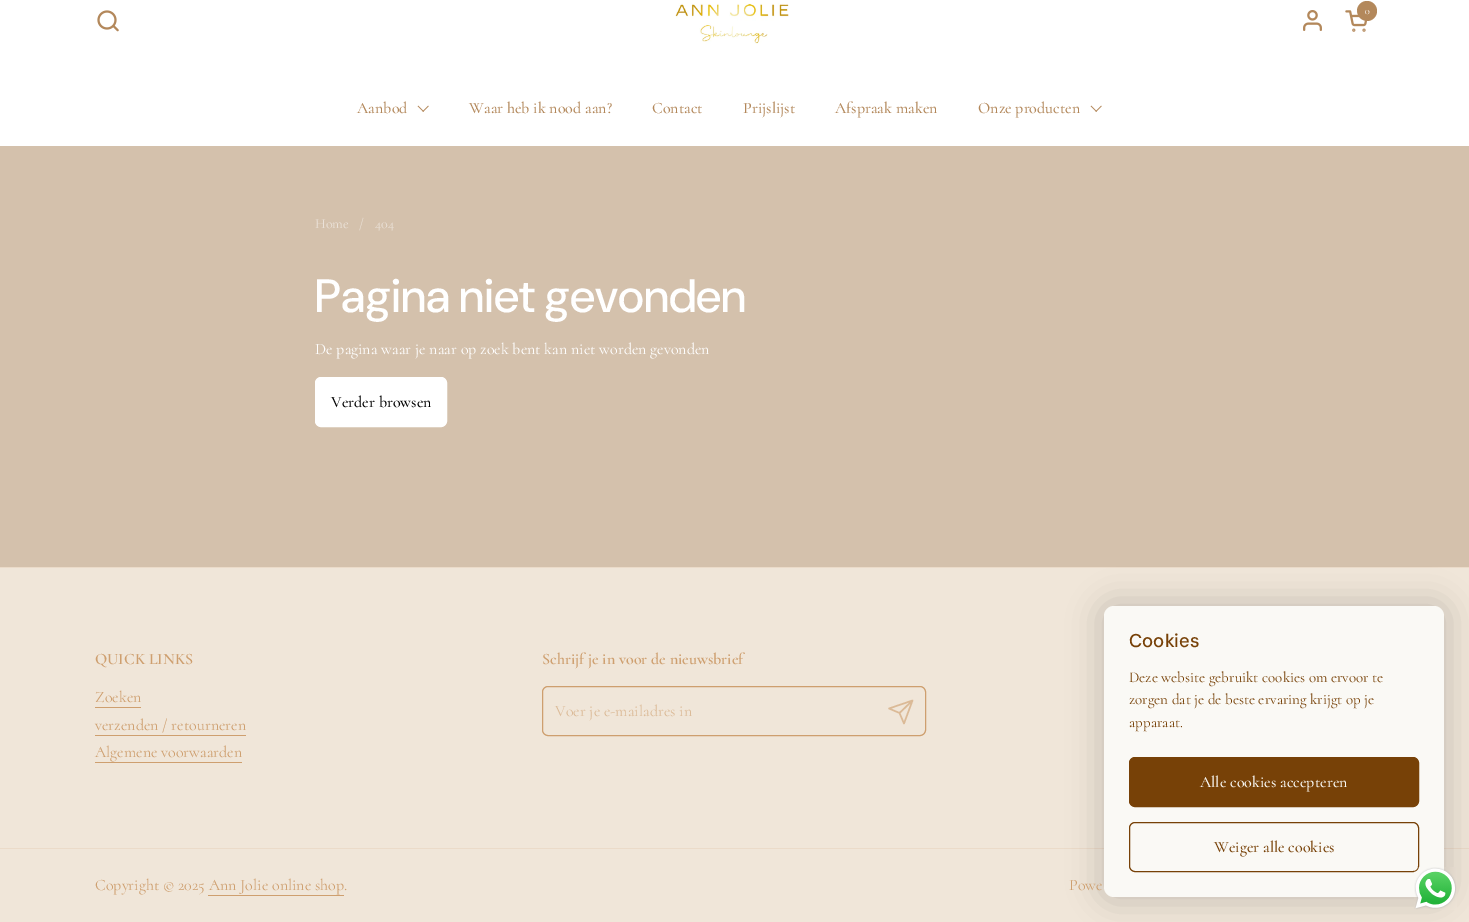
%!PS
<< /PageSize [1469 922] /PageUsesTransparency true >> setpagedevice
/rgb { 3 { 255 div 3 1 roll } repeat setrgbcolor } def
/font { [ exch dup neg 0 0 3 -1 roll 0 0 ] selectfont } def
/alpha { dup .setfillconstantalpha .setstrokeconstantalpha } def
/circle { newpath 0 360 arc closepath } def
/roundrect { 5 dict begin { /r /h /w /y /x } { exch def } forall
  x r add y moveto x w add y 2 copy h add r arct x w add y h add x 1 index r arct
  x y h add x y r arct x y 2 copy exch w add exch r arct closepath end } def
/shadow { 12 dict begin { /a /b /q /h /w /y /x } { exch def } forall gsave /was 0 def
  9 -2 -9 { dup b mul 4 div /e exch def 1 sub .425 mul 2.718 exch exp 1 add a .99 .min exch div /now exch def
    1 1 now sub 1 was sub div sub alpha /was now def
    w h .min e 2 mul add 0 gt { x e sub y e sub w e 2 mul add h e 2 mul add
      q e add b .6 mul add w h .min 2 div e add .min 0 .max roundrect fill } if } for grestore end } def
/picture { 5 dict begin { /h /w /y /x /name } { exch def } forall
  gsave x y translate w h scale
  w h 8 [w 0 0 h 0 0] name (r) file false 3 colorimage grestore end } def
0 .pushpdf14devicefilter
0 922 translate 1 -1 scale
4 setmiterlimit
212 193 172 rgb
0 0 1469 922 rectfill
255 255 255 rgb
0 0 1469 146 rectfill
(img/1.rgb) 97 10 22 22 picture
(img/2.rgb) 675 3 114 41 picture
(img/3.rgb) 1303 10 19 21 picture
179 136 91 rgb
1367 11 10 circle fill
(img/5.rgb) 417 105 12 7 picture
(img/5.rgb) 1090 105 12 7 picture
255 255 255 rgb
315.5 377.5 131 49 5.5 roundrect gsave fill grestore
stroke
[
  [0 568 1469 354 240 230 217]
  [0 567 1469 1 235 219 201]
  [95 707 46 1 206 159 111]
  [95 735 151 1 206 159 111]
  [95 762 147 1 206 159 111]
] { aload pop rgb rectfill } forall
542.5 686.5 383 49 5.5 roundrect stroke
219 186 151 rgb
1.5 setlinewidth
1 setlinecap
1 setlinejoin
912.5 700.5 moveto 899.5 713 lineto 912.5 700.5 moveto 904 723.5 lineto 899.5 713 lineto 889 708.5 lineto closepath stroke
235 219 201 rgb
0 848 1469 1 rectfill
206 159 111 rgb
208 895 136 1 rectfill
0 0 0 rgb
1098 600 352 303 16 15 0.15 shadow
250 249 245 rgb
1104 606 340 291 10 roundrect fill
119 65 7 rgb
1129.5 757.5 289 49 5.5 roundrect gsave fill grestore
1 setlinewidth
0 setlinecap
0 setlinejoin
stroke
1129.5 822.5 289 49 5.5 roundrect stroke
(img/6.rgb) 1414 867 43 43 picture
/Cormorant-Regular 10 font
255 255 255 rgb
1365 14 moveto (0) show
(img/4.rgb) 1345 10 22 22 picture
/Cormorant-Medium 16 font
179 136 91 rgb
[
  [(Aanbod) 357 113]
  [(Waar heb ik nood aan?) 469 113]
  [(Contact) 652 113]
  [(Prijslijst) 743 113]
  [(Afspraak maken) 835 113]
  [(Onze producten) 978 113]
] { aload pop moveto show } forall
/Cormorant-Regular 14 font
235 226 217 rgb
[
  [(Home) 315 228]
  [(/) 359 228]
  [(404) 375 228]
] { aload pop moveto show } forall
/DMSans-Medium 46.75 font
255 255 255 rgb
315 312 moveto (Pagina niet gevonden) show
/Cormorant-Regular 16 font
315 354 moveto (De pagina waar je naar op zoek bent kan niet worden gevonden) show
/Cormorant-Medium 16 font
0 0 0 rgb
331 407 moveto (Verder browsen) show
/Cormorant-SemiBold 16 font
206 159 111 rgb
95 664 moveto (QUICK LINKS) show
/Cormorant-Regular 16 font
[
  [(Zoeken) 95 702]
  [(verzenden / retourneren) 95 730]
  [(Algemene voorwaarden) 95 757]
] { aload pop moveto show } forall
/Cormorant-SemiBold 16 font
542 664 moveto (Schrijf je in voor de nieuwsbrief) show
/Cormorant-Regular 16 font
219 186 151 rgb
555 716 moveto (Voer je e-mailadres in) show
206 159 111 rgb
95 890 moveto (Copyright © 2025 Ann Jolie online shop.) show
1069 890 moveto (Powe) show
/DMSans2-Medium 18.5 font
119 65 7 rgb
1129 647 moveto (Cookies) show
/Cormorant-Regular 15 font
[
  [(Deze website gebruikt cookies om ervoor te) 1129 682]
  [(zorgen dat je de beste ervaring krijgt op je) 1129 704]
  [(apparaat.) 1129 727]
] { aload pop moveto show } forall
/Cormorant-Medium 16 font
250 249 245 rgb
1200 787 moveto (Alle cookies accepteren) show
119 65 7 rgb
1214 852 moveto (Weiger alle cookies) show
.poppdf14devicefilter showpage
